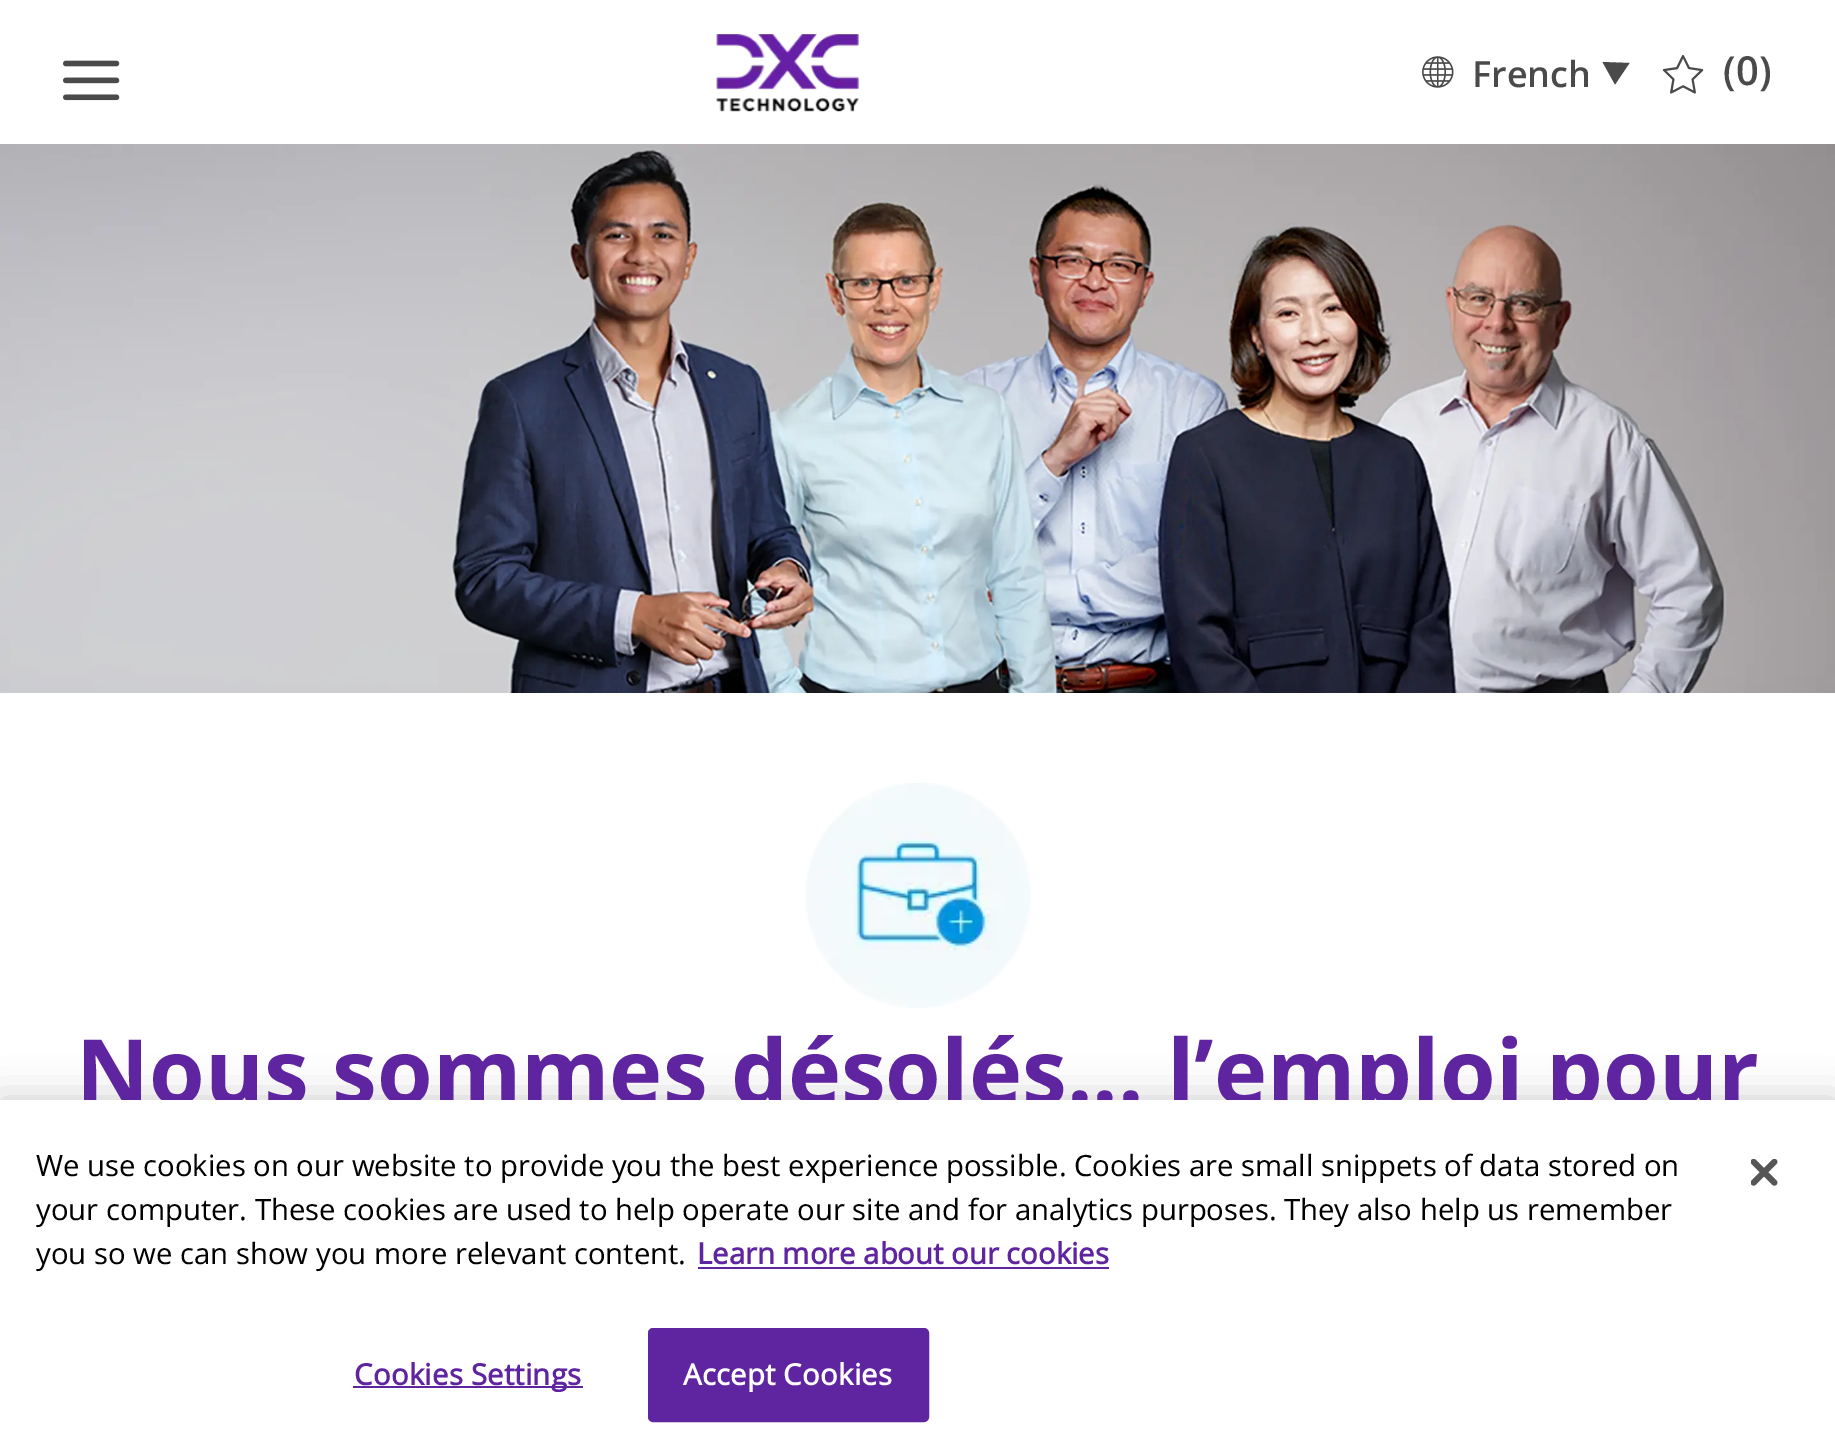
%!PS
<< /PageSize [1835 1456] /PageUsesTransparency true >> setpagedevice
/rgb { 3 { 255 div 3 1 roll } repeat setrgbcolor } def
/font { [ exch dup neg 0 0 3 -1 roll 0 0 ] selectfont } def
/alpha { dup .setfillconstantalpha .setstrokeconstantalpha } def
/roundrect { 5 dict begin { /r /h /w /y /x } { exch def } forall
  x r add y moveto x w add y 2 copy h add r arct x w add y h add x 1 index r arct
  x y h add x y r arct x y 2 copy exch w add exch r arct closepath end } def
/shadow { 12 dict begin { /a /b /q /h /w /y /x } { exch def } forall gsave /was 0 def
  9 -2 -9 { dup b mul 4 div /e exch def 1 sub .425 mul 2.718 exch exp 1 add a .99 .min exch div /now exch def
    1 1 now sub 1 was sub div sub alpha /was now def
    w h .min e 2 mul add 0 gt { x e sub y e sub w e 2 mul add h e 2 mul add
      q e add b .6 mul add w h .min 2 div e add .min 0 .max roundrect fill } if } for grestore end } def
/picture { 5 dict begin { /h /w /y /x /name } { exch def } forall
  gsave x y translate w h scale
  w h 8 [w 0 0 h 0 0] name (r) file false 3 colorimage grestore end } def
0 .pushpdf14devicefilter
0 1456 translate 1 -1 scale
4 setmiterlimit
255 255 255 rgb
0 0 1835 1456 rectfill
(img/1.rgb) 63 60 57 41 picture
(img/2.rgb) 716 34 143 78 picture
(img/3.rgb) 1422 56 32 32 picture
74 74 74 rgb
1615 84.5 moveto 1602.5 62 lineto 1629.5 63 lineto closepath fill
(img/4.rgb) 1662 55 42 39 picture
(img/5.rgb) 0 144 1835 549 picture
(img/6.rgb) 805 783 226 225 picture
0 0 0 rgb
0 1100 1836 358 0 20 0.2 shadow
/OpenSans-SemiBold 36 font
74 74 74 rgb
1472 87 moveto (French) show
/OpenSans-SemiBold 40 font
1723 85 moveto (\(0\)) show
/OpenSans-Bold 90 font
95 36 159 rgb
76 1104 moveto (Nous sommes désolés... l’emploi pour) show
255 255 255 rgb
0 1100 1835 356 rectfill
/OpenSans-Regular 29.27 font
0 0 0 rgb
[
  [(We use cookies on our website to provide you the best experience possible. Cookies are small snippets of data stored on) 36 1176]
  [(your computer. These cookies are used to help operate our site and for analytics purposes. They also help us remember) 36 1220]
  [(you so we can show you more relevant content.) 36 1264]
] { aload pop moveto show } forall
/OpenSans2-Bold 29.27 font
95 36 159 rgb
697 1264 moveto (Learn more about our cookies) show
698 1267 411 2 rectfill
353 1386 230 2 rectfill
354 1385 moveto 0.25 0 (Cookies Settings) ashow
649 1329 279 92 4 roundrect gsave fill grestore
2 setlinewidth
stroke
255 255 255 rgb
683 1385 moveto 0.25 0 (Accept Cookies) ashow
(img/7.rgb) 1751 1159 27 27 picture
.poppdf14devicefilter showpage
